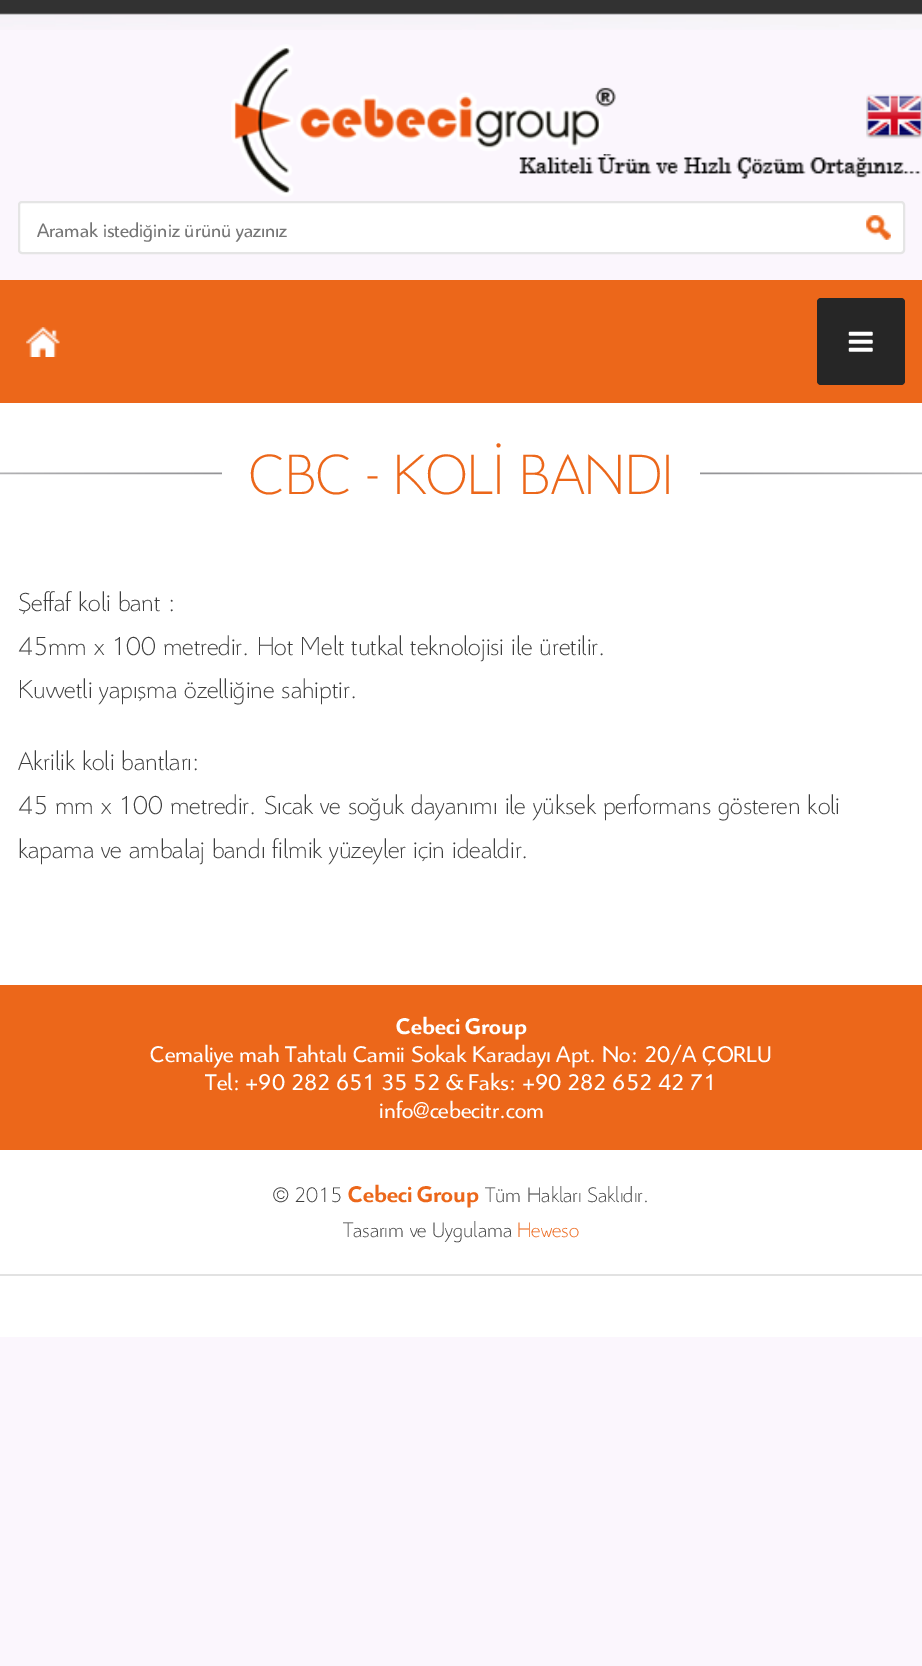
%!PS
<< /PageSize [922 1666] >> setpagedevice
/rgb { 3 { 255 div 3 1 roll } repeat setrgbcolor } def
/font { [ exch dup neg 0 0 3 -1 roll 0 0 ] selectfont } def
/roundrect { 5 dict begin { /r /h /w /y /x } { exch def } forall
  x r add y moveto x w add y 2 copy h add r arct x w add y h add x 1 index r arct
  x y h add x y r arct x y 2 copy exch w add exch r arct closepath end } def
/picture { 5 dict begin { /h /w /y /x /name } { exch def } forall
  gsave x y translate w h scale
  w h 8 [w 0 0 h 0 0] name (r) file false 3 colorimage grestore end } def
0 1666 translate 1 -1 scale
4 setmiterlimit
251 246 253 rgb
0 0 922 1666 rectfill
(img/1.rgb) 0 0 922 30 picture
(img/4.rgb) 519 154 402 25 picture
(img/2.rgb) 231 44 385 153 picture
(img/3.rgb) 866 94 56 45 picture
255 255 255 rgb
19 202 885 51 3 roundrect gsave fill grestore
229 229 229 rgb
2 setlinewidth
stroke
(img/5.rgb) 866 215 25 25 picture
236 103 26 rgb
0 280 922 123 rectfill
(img/6.rgb) 26 327 34 30 picture
38 38 38 rgb
817 298 88 87 4 roundrect fill
(img/7.rgb) 848 331 25 21 picture
255 255 255 rgb
0 403 922 934 rectfill
(img/8.rgb) 0 472 922 3 picture
[
  [222 472 478 3 255 255 255]
  [0 985 922 165 236 103 26]
  [0 1274 922 2 226 226 226]
] { aload pop rgb rectfill } forall
/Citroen-Regular 21 font
117 117 117 rgb
37 237 moveto (Aramak istediğiniz ürünü yazınız) show
/Citroen-Light 61.25 font
236 103 26 rgb
249 494 moveto (CBC - KOLİ BANDI) show
/Citroen-Light 28 font
63 63 63 rgb
[
  [(Şeffaf koli bant :) 18 611]
  [(45mm x 100 metredir. Hot Melt tutkal teknolojisi ile üretilir.) 18 655]
  [(Kuvvetli yapışma özelliğine sahiptir.) 18 698]
  [(Akrilik koli bantları:) 18 770]
  [(45 mm x 100 metredir. Sıcak ve soğuk dayanımı ile yüksek performans gösteren koli) 18 814]
  [(kapama ve ambalaj bandı filmik yüzeyler için idealdir.) 18 858]
] { aload pop moveto show } forall
/Citroen-Bold 24.5 font
255 255 255 rgb
396 1034 moveto (Cebeci Group) show
/Citroen-Regular 24.5 font
[
  [(Cemaliye mah Tahtalı Camii Sokak Karadayı Apt. No: 20/A ÇORLU) 150 1062]
  [(Tel: +90 282 651 35 52 & Faks: +90 282 652 42 71) 205 1090]
  [(info@cebecitr.com) 379 1118]
] { aload pop moveto show } forall
/Citroen-Light 22.75 font
63 63 63 rgb
273 1202 moveto (© 2015) show
/Citroen-Bold 24.5 font
236 103 26 rgb
348 1202 moveto (Cebeci Group) show
/Citroen-Light 22.75 font
63 63 63 rgb
485 1202 moveto (Tüm Hakları Saklıdır.) show
343 1237 moveto (Tasarım ve Uygulama) show
236 103 26 rgb
517 1237 moveto (Heweso) show
showpage
